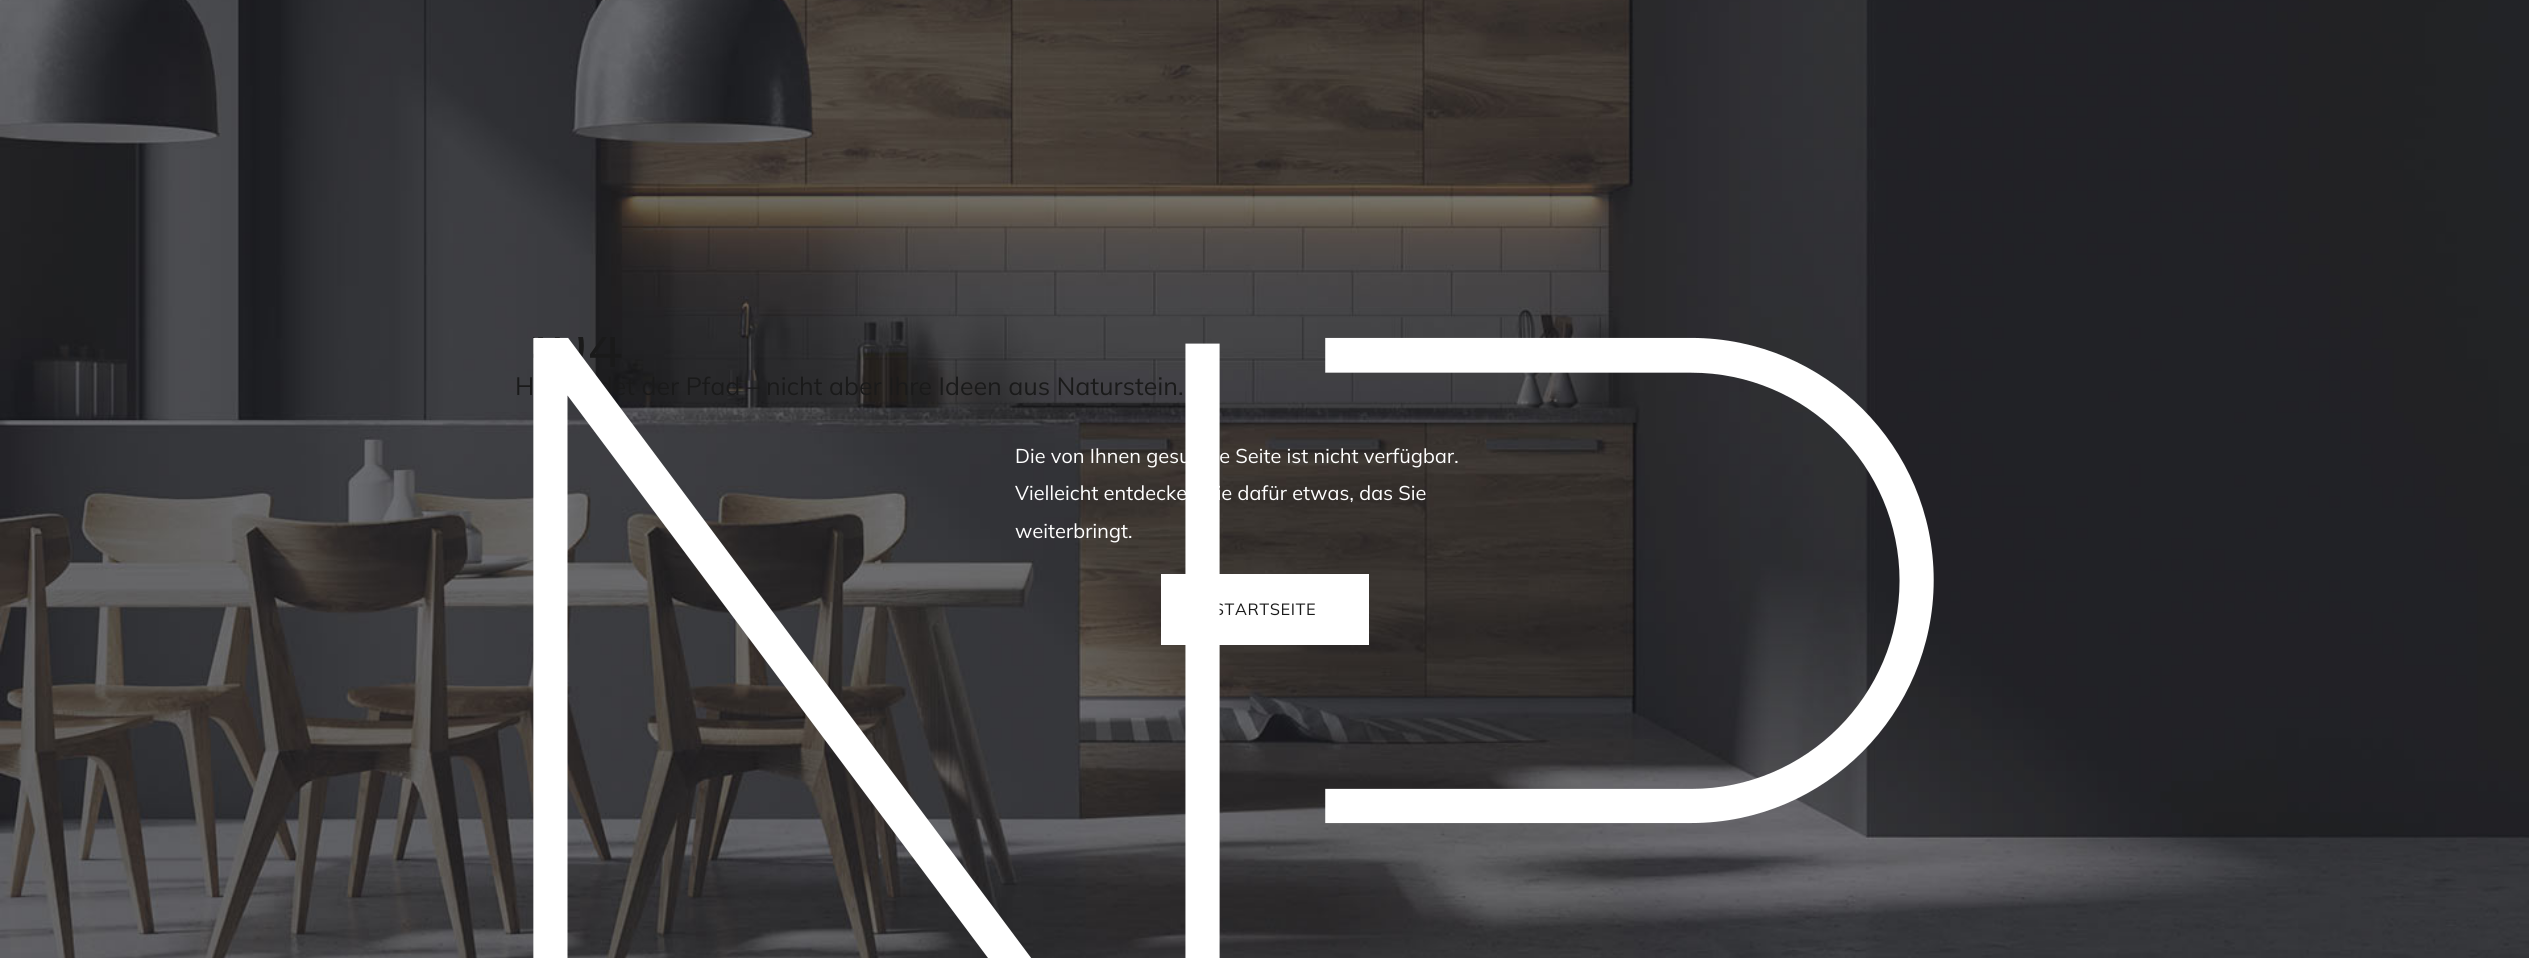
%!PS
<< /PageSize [2529 958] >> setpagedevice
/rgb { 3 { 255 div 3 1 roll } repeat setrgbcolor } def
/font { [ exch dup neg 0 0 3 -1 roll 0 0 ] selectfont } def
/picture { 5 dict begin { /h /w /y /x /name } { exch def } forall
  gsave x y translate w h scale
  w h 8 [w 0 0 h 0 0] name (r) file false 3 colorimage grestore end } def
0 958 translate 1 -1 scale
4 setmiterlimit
255 255 255 rgb
0 0 2529 958 rectfill
(img/1.rgb) 0 0 2529 958 picture
1161 574 208 71 rectfill
/Mulish-ExtraLight 25 font
26 26 26 rgb
[
  [(H) 515 395]
  [(icht ab) 781 395]
  [(Ideen aus Naturstein.) 938 395]
] { aload pop moveto show } forall
/Mulish-ExtraLight 20 font
255 255 255 rgb
[
  [(Die von Ihnen gesu) 1015 463]
  [(e Seite ist nicht verfügbar.) 1219 463]
  [(Vielleicht entdecke) 1015 500]
  [(e dafür etwas, das Sie) 1221 500]
  [(weiterbringt.) 1015 538]
] { aload pop moveto show } forall
/Mulish-Bold 16.25 font
26 26 26 rgb
1225 615 moveto 0.6 0 (TARTSEITE) ashow
(img/2.rgb) 533 337 1401 621 picture
showpage
